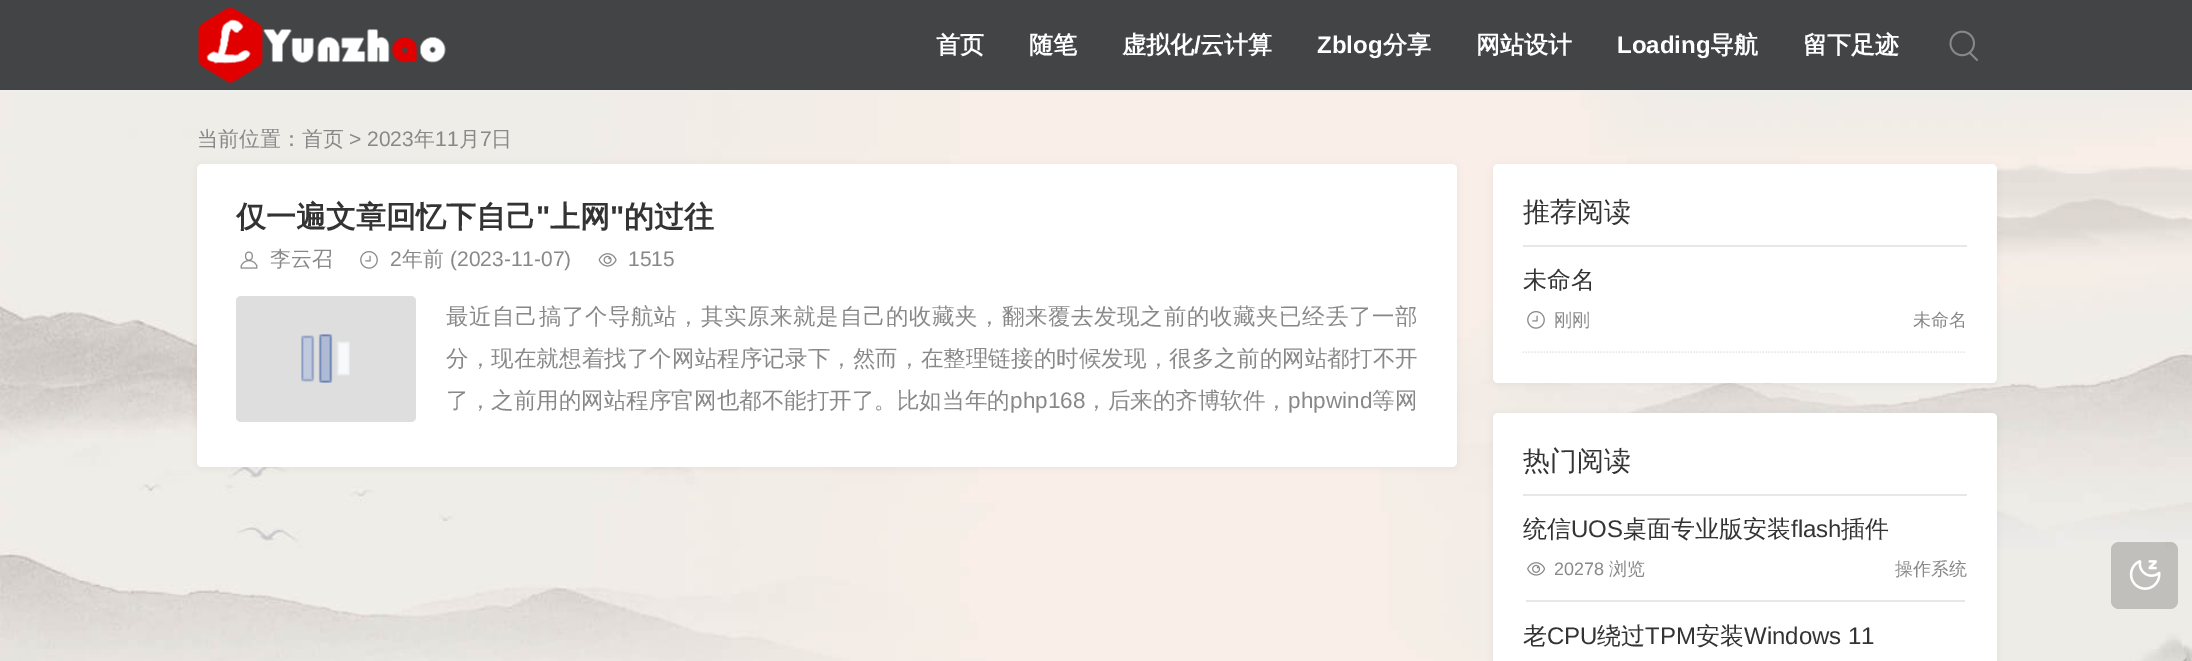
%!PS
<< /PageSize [2192 661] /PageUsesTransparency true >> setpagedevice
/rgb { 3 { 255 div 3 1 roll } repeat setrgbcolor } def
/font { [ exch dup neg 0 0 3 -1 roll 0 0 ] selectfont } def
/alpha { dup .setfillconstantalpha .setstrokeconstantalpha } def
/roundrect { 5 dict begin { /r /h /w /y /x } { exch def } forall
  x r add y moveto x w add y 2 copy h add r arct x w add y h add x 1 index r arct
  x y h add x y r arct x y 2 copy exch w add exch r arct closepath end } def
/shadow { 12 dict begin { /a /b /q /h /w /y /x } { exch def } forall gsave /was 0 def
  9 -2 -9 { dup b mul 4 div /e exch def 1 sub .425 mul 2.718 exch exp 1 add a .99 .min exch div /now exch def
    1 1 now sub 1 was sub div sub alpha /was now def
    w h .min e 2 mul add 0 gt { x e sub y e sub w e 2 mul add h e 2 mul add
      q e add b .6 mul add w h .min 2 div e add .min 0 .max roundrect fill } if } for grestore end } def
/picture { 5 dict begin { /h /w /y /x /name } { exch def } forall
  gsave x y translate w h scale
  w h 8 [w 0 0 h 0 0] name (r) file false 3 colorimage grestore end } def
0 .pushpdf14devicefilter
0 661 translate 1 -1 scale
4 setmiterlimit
255 255 255 rgb
0 0 2192 661 rectfill
67 68 69 rgb
0 0 2192 90 rectfill
238 238 238 rgb
0 90 2192 2 rectfill
(img/1.rgb) 198 8 248 75 picture
(img/2.rgb) 1949 30 29 31 picture
(img/3.rgb) 0 92 2192 569 picture
0 0 0 rgb
197 165 1260 303 5 4 0.05 shadow
255 255 255 rgb
197 164 1260 303 5 roundrect fill
(img/4.rgb) 240 251 18 18 picture
(img/5.rgb) 360 251 18 18 picture
(img/6.rgb) 598 253 19 14 picture
222 222 222 rgb
236 296 180 126 5 roundrect fill
(img/7.rgb) 301 334 49 49 picture
0 0 0 rgb
1493 165 504 219 5 4 0.05 shadow
255 255 255 rgb
1493 164 504 219 5 roundrect fill
228 232 235 rgb
1523 245 444 2 rectfill
1.5 setlinewidth
[1.5 1.5] 0 setdash
1522.5 352 moveto 1966.5 352 lineto stroke
(img/5.rgb) 1527 311 18 18 picture
0 0 0 rgb
1493 414 504 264 5 4 0.05 shadow
255 255 255 rgb
1493 413 504 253 5 roundrect fill
228 232 235 rgb
1523 494 444 2 rectfill
1526 600 439 2 rectfill
(img/8.rgb) 1527 562 19 14 picture
0.2 alpha
10 10 10 rgb
2111 542 67 67 8 roundrect fill
1 alpha
(img/9.rgb) 2129 560 32 30 picture
/WenQuanYiZenHei-Bold 24 font
255 255 255 rgb
[
  [(首页) 936 53]
  [(随笔) 1029 53]
  [(虚拟化) 1122 53]
] { aload pop moveto show } forall
/LiberationSans-Bold 24 font
1194 53 moveto (/) show
/WenQuanYiZenHei-Bold 24 font
1200 53 moveto (云计算) show
/LiberationSans-Bold 24 font
1317 53 moveto (Zblog) show
/WenQuanYiZenHei-Bold 24 font
1383 53 moveto (分享) show
1476 53 moveto (网站设计) show
/LiberationSans-Bold 24 font
1617 53 moveto (Loading) show
/WenQuanYiZenHei-Bold 24 font
1710 53 moveto (导航) show
1803 53 moveto (留下足迹) show
/WenQuanYiZenHei-Medium 21 font
136 136 136 rgb
197 146 moveto (当前位置：首页) show
/LiberationSans-Regular 21 font
349 146 moveto (> 2023) show
/WenQuanYiZenHei-Medium 21 font
414 146 moveto (年) show
/LiberationSans-Regular 21 font
435 146 moveto (11) show
/WenQuanYiZenHei-Medium 21 font
459 146 moveto (月) show
/LiberationSans-Regular 21 font
480 146 moveto (7) show
/WenQuanYiZenHei-Medium 21 font
491 146 moveto (日) show
/WenQuanYiZenHei-Bold 30 font
51 51 51 rgb
236 227 moveto (仅一遍文章回忆下自己) show
/LiberationSans-Bold 30 font
536 227 moveto (") show
/WenQuanYiZenHei-Bold 30 font
550 227 moveto (上网) show
/LiberationSans-Bold 30 font
610 227 moveto (") show
/WenQuanYiZenHei-Bold 30 font
624 227 moveto (的过往) show
/WenQuanYiZenHei-Medium 21 font
136 136 136 rgb
270 266 moveto (李云召) show
/LiberationSans-Regular 21 font
390 266 moveto (2) show
/WenQuanYiZenHei-Medium 21 font
402 266 moveto (年前) show
/LiberationSans-Regular 21 font
450 266 moveto (\(2023-11-07\)) show
628 266 moveto (1515) show
/WenQuanYiZenHei-Medium 22.5 font
446 324 moveto 0.65 0 (最近自己搞了个导航站，其实原来就是自己的收藏夹，翻来覆去发现之前的收藏夹已经丢了一部) ashow
446 366 moveto 0.1 0 (分，现在就想着找了个网站程序记录下，然而，在整理链接的时候发现，很多之前的网站都打不开) ashow
446 408 moveto 0.05 0 (了，之前用的网站程序官网也都不能打开了。比如当年的) ashow
/LiberationSans-Regular 22.5 font
1010 408 moveto 0.05 0 (php168) ashow
/WenQuanYiZenHei-Medium 22.5 font
1085 408 moveto 0.05 0 (，后来的齐博软件，) ashow
/LiberationSans-Regular 22.5 font
1288 408 moveto 0.05 0 (phpwind) ashow
/WenQuanYiZenHei-Medium 22.5 font
1372 408 moveto 0.05 0 (等网) ashow
/WenQuanYiZenHei-Medium 27 font
51 51 51 rgb
1523 221 moveto (推荐阅读) show
/WenQuanYiZenHei-Medium 24 font
1523 288 moveto (未命名) show
/WenQuanYiZenHei-Medium 18 font
136 136 136 rgb
1554 326 moveto (刚刚) show
1913 326 moveto (未命名) show
/WenQuanYiZenHei-Medium 27 font
51 51 51 rgb
1523 470 moveto (热门阅读) show
/WenQuanYiZenHei-Medium 24 font
1523 537 moveto (统信) show
/LiberationSans-Regular 24 font
1571 537 moveto (UOS) show
/WenQuanYiZenHei-Medium 24 font
1623 537 moveto (桌面专业版安装) show
/LiberationSans-Regular 24 font
1791 537 moveto (flash) show
/WenQuanYiZenHei-Medium 24 font
1841 537 moveto (插件) show
/LiberationSans-Regular 18 font
136 136 136 rgb
1554 575 moveto (20278) show
/WenQuanYiZenHei-Medium 18 font
1609 575 moveto (浏览) show
1895 575 moveto (操作系统) show
/WenQuanYiZenHei-Medium 24 font
51 51 51 rgb
1523 644 moveto (老) show
/LiberationSans-Regular 24 font
1547 644 moveto (CPU) show
/WenQuanYiZenHei-Medium 24 font
1597 644 moveto (绕过) show
/LiberationSans-Regular 24 font
1645 644 moveto (TPM) show
/WenQuanYiZenHei-Medium 24 font
1696 644 moveto (安装) show
/LiberationSans-Regular 24 font
1744 644 moveto (Windows 11) show
.poppdf14devicefilter showpage
